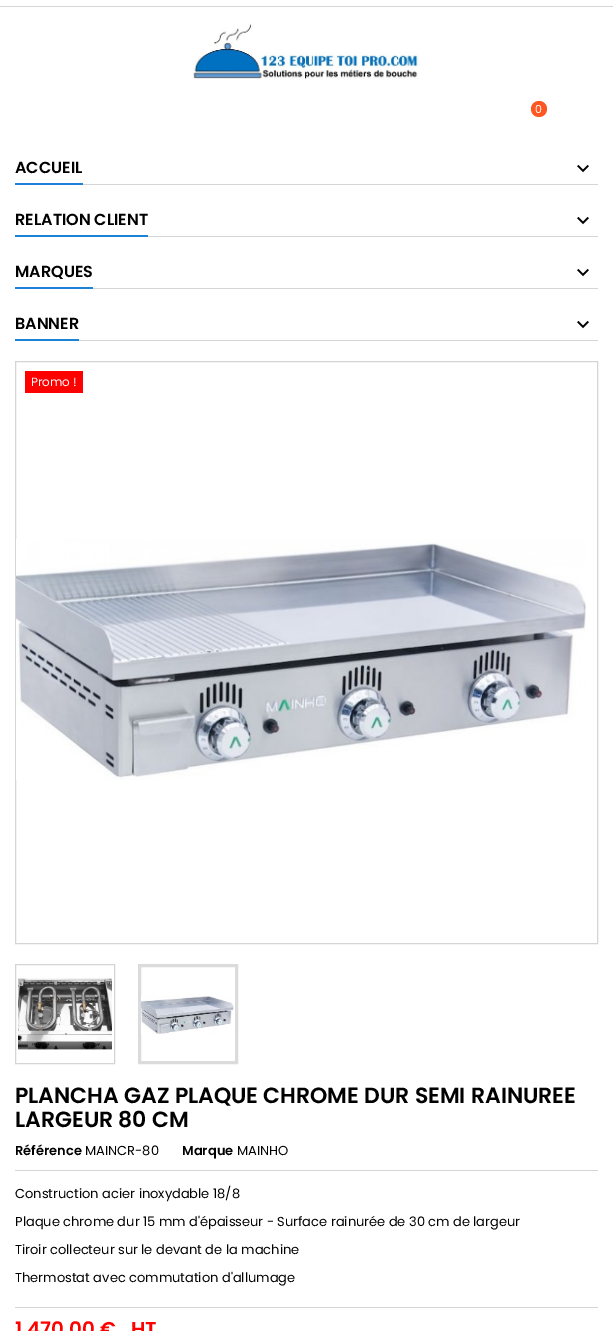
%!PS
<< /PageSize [613 1331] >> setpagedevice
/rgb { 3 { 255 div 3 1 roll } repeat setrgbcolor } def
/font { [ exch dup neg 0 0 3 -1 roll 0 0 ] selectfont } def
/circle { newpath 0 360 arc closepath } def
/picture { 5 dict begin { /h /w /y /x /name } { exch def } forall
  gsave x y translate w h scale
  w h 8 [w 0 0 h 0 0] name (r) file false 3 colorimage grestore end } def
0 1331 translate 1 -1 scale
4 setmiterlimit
255 255 255 rgb
0 0 613 1331 rectfill
214 212 212 rgb
0 6 613 1 rectfill
(img/1.rgb) 193 23 227 57 picture
255 87 34 rgb
539 109 8 circle fill
214 212 212 rgb
83 184 515 1 rectfill
27 130 214 rgb
15 183 68 2 rectfill
(img/2.rgb) 577 164 12 9 picture
214 212 212 rgb
148 236 450 1 rectfill
27 130 214 rgb
15 235 133 2 rectfill
(img/2.rgb) 577 216 12 9 picture
214 212 212 rgb
93 288 505 1 rectfill
27 130 214 rgb
15 287 78 2 rectfill
(img/2.rgb) 577 268 12 9 picture
214 212 212 rgb
79 340 519 1 rectfill
27 130 214 rgb
15 339 64 2 rectfill
(img/2.rgb) 577 320 12 9 picture
214 212 212 rgb
15.5 361.5 582 582 rectstroke
(img/3.rgb) 16 539 570 241 picture
15.5 964.5 99 99 rectstroke
219 219 219 rgb
3 setlinewidth
139.5 965.5 97 97 rectstroke
(img/4.rgb) 18 978 94 72 picture
(img/5.rgb) 141 996 93 38 picture
[
  [25 371 58 22 255 0 0]
  [15 1170 583 1 214 212 212]
  [15 1307 583 1 214 212 212]
] { aload pop rgb rectfill } forall
/Poppins-Regular 11 font
255 255 255 rgb
535 113 moveto (0) show
/Poppins-SemiBold 16 font
0 0 0 rgb
[
  [(ACCUEIL) 15 173]
  [(RELATION CLIENT) 15 225]
  [(MARQUES) 15 277]
  [(BANNER) 15 329]
] { aload pop moveto show } forall
/Poppins-Regular 12 font
255 255 255 rgb
31 386 moveto (Promo !) show
/Poppins-SemiBold 22 font
0 0 0 rgb
15 1103 moveto (PLANCHA GAZ PLAQUE CHROME DUR SEMI RAINUREE) show
15 1127 moveto (LARGEUR 80 CM) show
/Poppins-SemiBold 13 font
15 1155 moveto (Référence) show
/Poppins-Regular 13 font
85 1155 moveto (MAINCR-80) show
/Poppins-SemiBold 13 font
182 1155 moveto (Marque) show
/Poppins-Regular 13 font
[
  [(MAINHO) 237 1155]
  [(Construction acier inoxydable 18/8) 15 1198]
  [(Plaque chrome dur 15 mm d'épaisseur - Surface rainurée de 30 cm de largeur) 15 1226]
  [(Tiroir collecteur sur le devant de la machine) 15 1254]
  [(Thermostat avec commutation d'allumage) 15 1282]
] { aload pop moveto show } forall
/Poppins-SemiBold 20 font
255 0 0 rgb
15 1336 moveto (1 470,00 €) show
131 1336 moveto (HT) show
showpage
